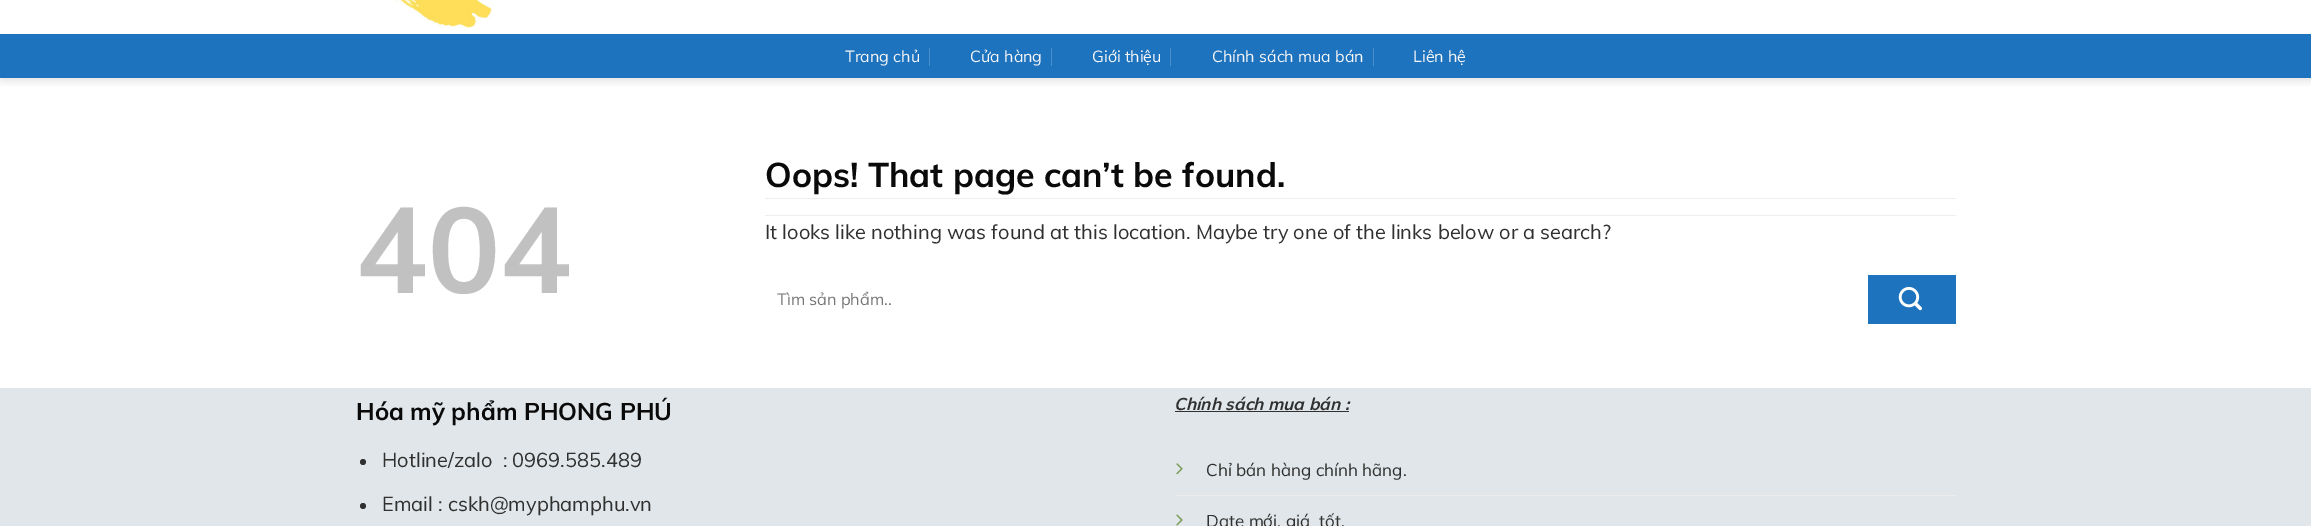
%!PS
<< /PageSize [2311 526] /PageUsesTransparency true >> setpagedevice
/rgb { 3 { 255 div 3 1 roll } repeat setrgbcolor } def
/font { [ exch dup neg 0 0 3 -1 roll 0 0 ] selectfont } def
/alpha { dup .setfillconstantalpha .setstrokeconstantalpha } def
/circle { newpath 0 360 arc closepath } def
/roundrect { 5 dict begin { /r /h /w /y /x } { exch def } forall
  x r add y moveto x w add y 2 copy h add r arct x w add y h add x 1 index r arct
  x y h add x y r arct x y 2 copy exch w add exch r arct closepath end } def
/shadow { 12 dict begin { /a /b /q /h /w /y /x } { exch def } forall gsave /was 0 def
  9 -2 -9 { dup b mul 4 div /e exch def 1 sub .425 mul 2.718 exch exp 1 add a .99 .min exch div /now exch def
    1 1 now sub 1 was sub div sub alpha /was now def
    w h .min e 2 mul add 0 gt { x e sub y e sub w e 2 mul add h e 2 mul add
      q e add b .6 mul add w h .min 2 div e add .min 0 .max roundrect fill } if } for grestore end } def
/picture { 5 dict begin { /h /w /y /x /name } { exch def } forall
  gsave x y translate w h scale
  w h 8 [w 0 0 h 0 0] name (r) file false 3 colorimage grestore end } def
0 .pushpdf14devicefilter
0 526 translate 1 -1 scale
4 setmiterlimit
255 255 255 rgb
0 0 2311 526 rectfill
gsave
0 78 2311 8 rectclip
0 0 0 rgb
1 -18 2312 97 0 6 0.15 shadow
grestore
(img/1.rgb) 395 0 99 28 picture
[
  [0 34 2311 44 30 115 190]
  [929 48 1 18 75 143 203]
  [1051 48 1 18 75 143 203]
  [1170 48 1 18 75 143 203]
  [1373 48 1 18 75 143 203]
  [765 215 1191 1 238 238 238]
  [765 198 1191 1 238 238 238]
  [1868 275 88 49 30 115 190]
] { aload pop rgb rectfill } forall
(img/2.rgb) 1898 286 24 25 picture
224 230 233 rgb
0 388 2311 138 rectfill
48 48 48 rgb
363 462 3 circle fill
363 506 3 circle fill
1175 411 174 1 rectfill
236 236 236 rgb
1175 495 781 1 rectfill
(img/3.rgb) 1176 463 7 12 picture
(img/4.rgb) 1176 514 7 12 picture
/Muli-Regular 16 font
247 246 246 rgb
[
  [(Trang chủ) 845 62]
  [(Cửa hàng) 970 62]
  [(Giới thiệu) 1092 62]
  [(Chính sách mua bán) 1212 62]
  [(Liên hệ) 1413 62]
] { aload pop moveto show } forall
/Muli-Bold 120 font
193 193 193 rgb
356 293 moveto (404) show
/Muli-Bold 34 font
10 10 10 rgb
765 187 moveto (Oops! That page can’t be found.) show
/Muli-Regular 20 font
48 48 48 rgb
765 239 moveto (It looks like nothing was found at this location. Maybe try one of the links below or a search?) show
/Muli-Regular 16.25 font
117 117 117 rgb
777 305 moveto (Tìm sản phẩm..) show
/Muli-Bold 24 font
10 10 10 rgb
356 420 moveto (Hóa mỹ phẩm PHONG PHÚ) show
/Muli-Regular 20 font
48 48 48 rgb
382 467 moveto (Hotline/zalo  : 0969.585.489) show
382 511 moveto (Email : cskh@myphamphu.vn) show
/Muli-BoldItalic 17 font
1174 410 moveto (Chính sách mua bán :) show
/Muli-Regular 17 font
1206 476 moveto (Chỉ bán hàng chính hãng.) show
1206 527 moveto (Date mới, giá  tốt.) show
.poppdf14devicefilter showpage
